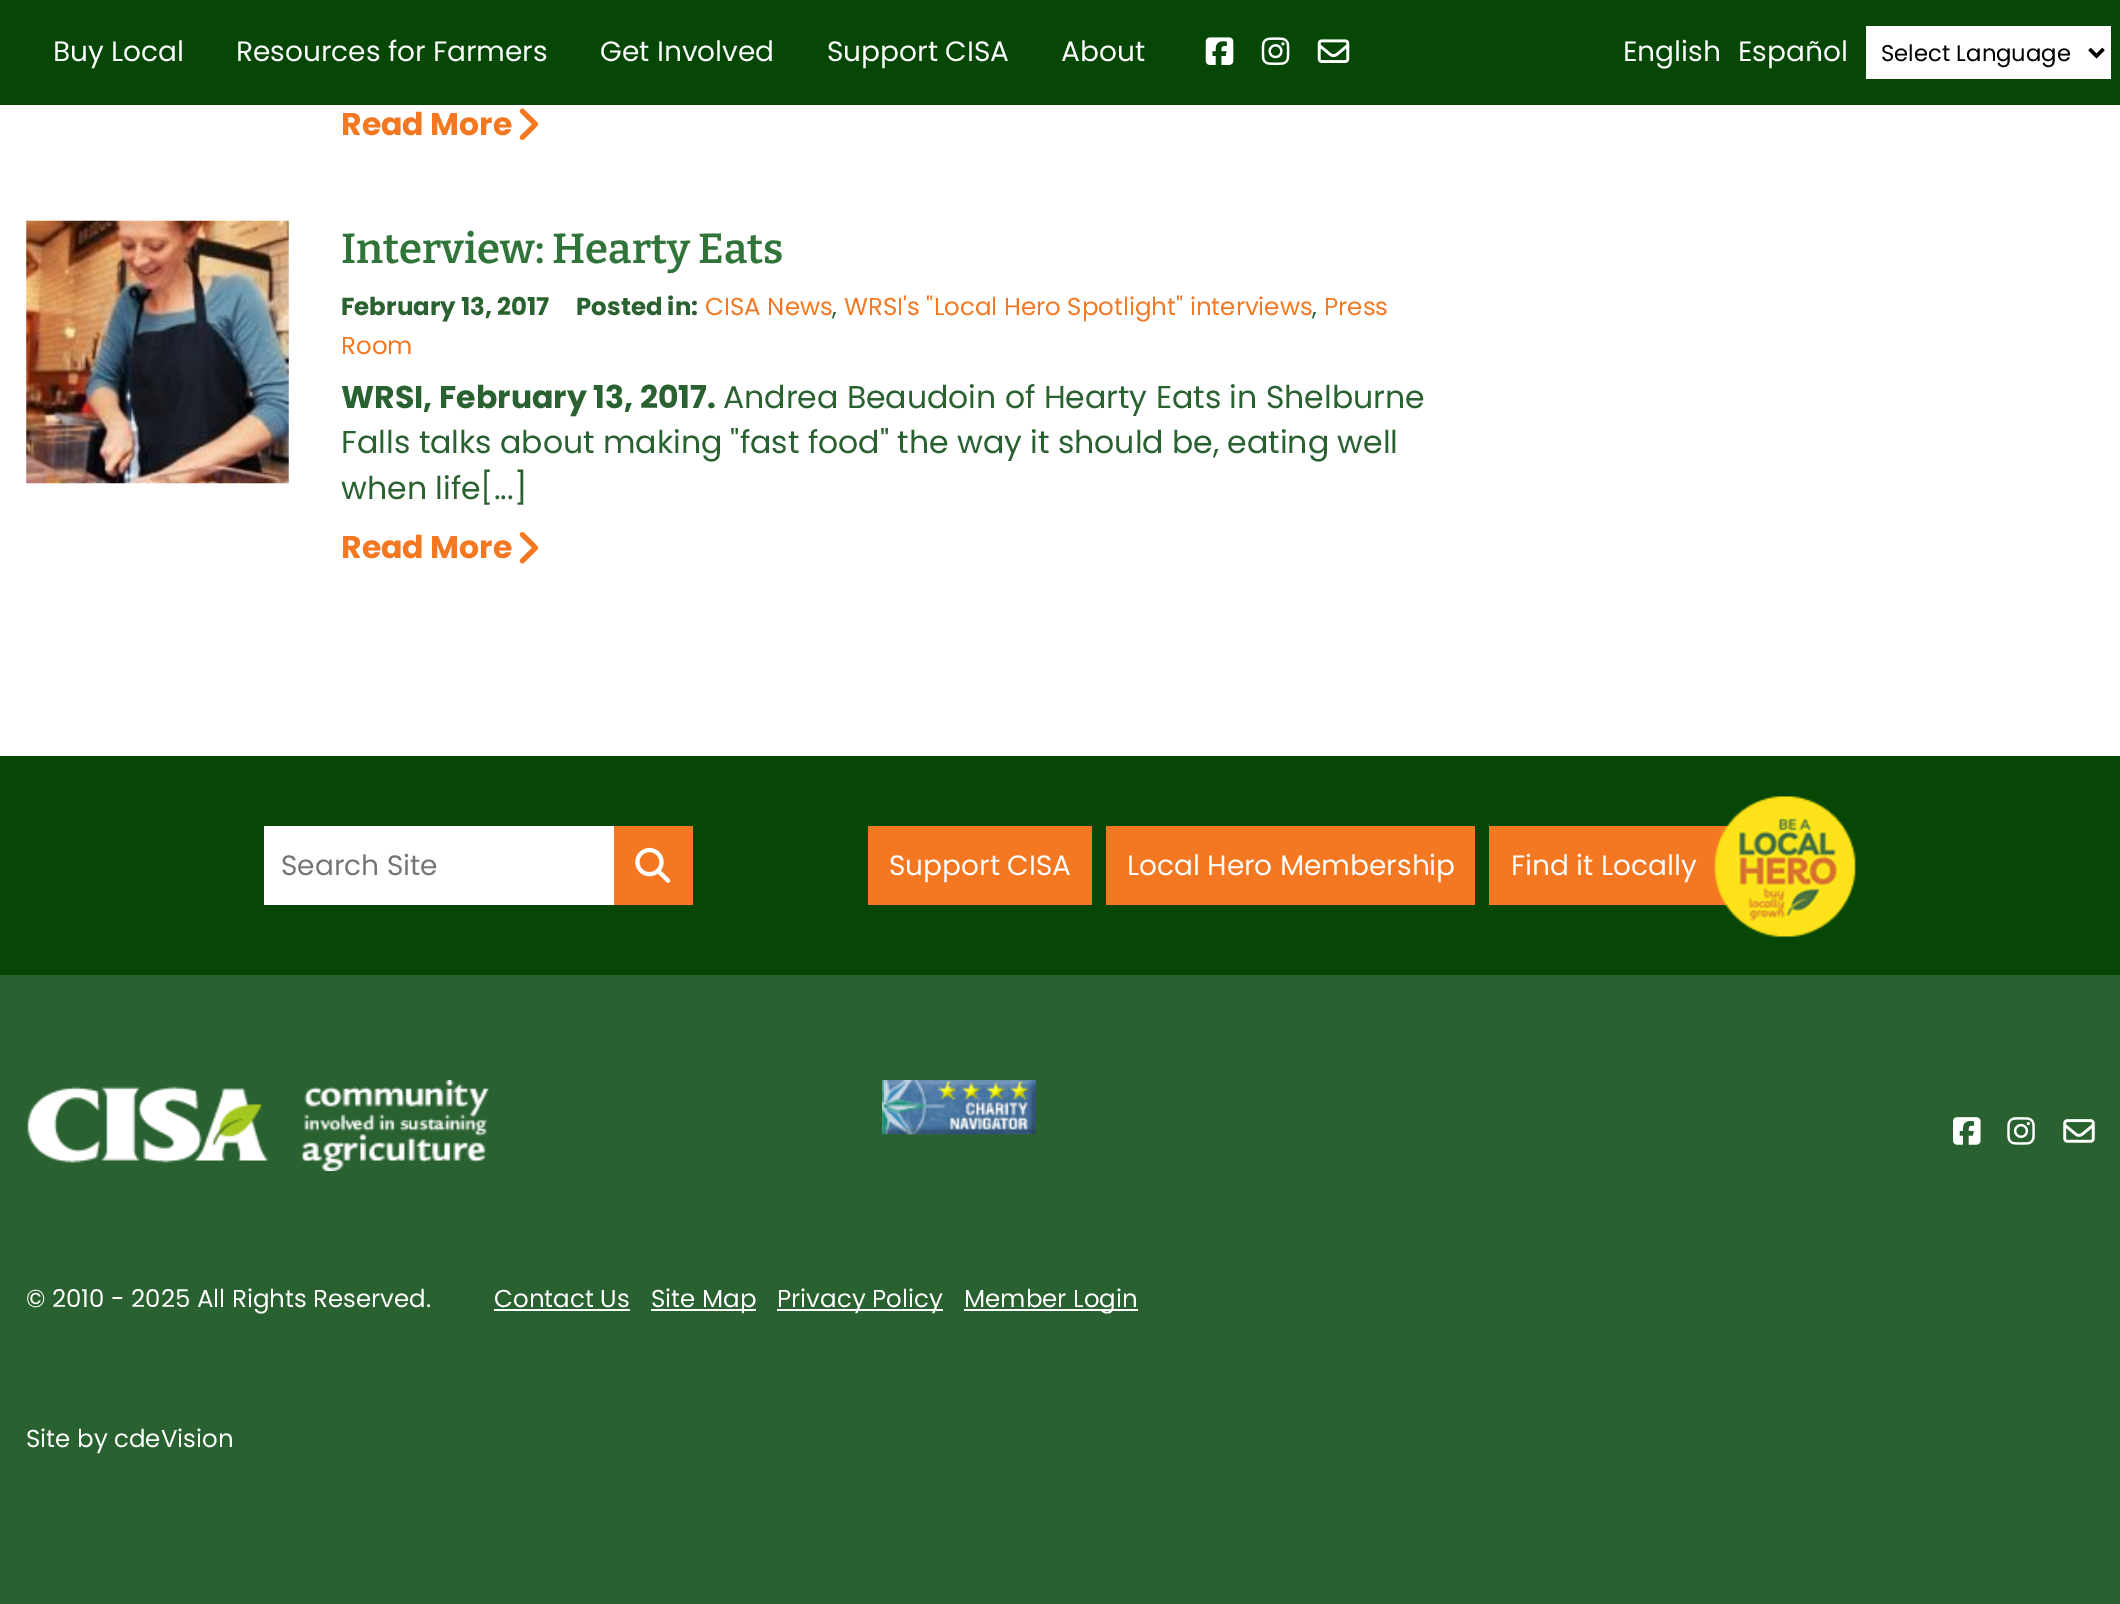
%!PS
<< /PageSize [2120 1604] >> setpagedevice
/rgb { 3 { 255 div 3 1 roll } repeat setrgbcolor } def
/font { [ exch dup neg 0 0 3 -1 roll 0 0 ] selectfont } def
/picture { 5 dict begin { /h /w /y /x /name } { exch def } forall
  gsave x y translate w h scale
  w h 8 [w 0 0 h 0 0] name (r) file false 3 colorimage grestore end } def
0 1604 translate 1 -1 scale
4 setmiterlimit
255 255 255 rgb
0 0 2120 1604 rectfill
6 71 6 rgb
0 0 2120 105 rectfill
(img/1.rgb) 1205 37 29 28 picture
(img/2.rgb) 1261 37 29 28 picture
(img/3.rgb) 1317 39 33 24 picture
255 255 255 rgb
1866 26 245 53 rectfill
0 0 0 rgb
3.5 setlinewidth
2089.5 49 moveto 2096.5 56 lineto 2103.5 49 lineto stroke
(img/4.rgb) 519 108 20 32 picture
(img/5.rgb) 26 220 263 264 picture
(img/6.rgb) 519 532 20 32 picture
[
  [0 756 2120 219 6 71 6]
  [264 826 350 79 255 255 255]
  [614 826 79 79 244 119 34]
] { aload pop rgb rectfill } forall
(img/7.rgb) 635 847 36 36 picture
[
  [868 826 224 79 244 119 34]
  [1106 826 369 79 244 119 34]
  [1489 826 354 79 244 119 34]
] { aload pop rgb rectfill } forall
(img/8.rgb) 1714 796 142 141 picture
41 97 48 rgb
0 975 2120 629 rectfill
(img/9.rgb) 27 1080 462 91 picture
(img/10.rgb) 882 1080 154 55 picture
(img/11.rgb) 1953 1117 28 28 picture
(img/12.rgb) 2007 1117 28 28 picture
(img/13.rgb) 2063 1119 32 24 picture
[
  [494 1309 136 2 255 255 255]
  [651 1309 105 2 255 255 255]
  [777 1309 166 2 255 255 255]
  [964 1309 174 2 255 255 255]
] { aload pop rgb rectfill } forall
/Poppins-Regular 28 font
[
  [(Buy Local) 53 61]
  [(Resources for Farmers) 236 61]
  [(Get Involved) 600 61]
  [(Support CISA) 827 61]
  [(About) 1061 61]
  [(English) 1623 61]
  [(Español) 1738 61]
] { aload pop moveto show } forall
/Poppins-Regular 22.75 font
0 0 0 rgb
1881 61 moveto (Select Language) show
/Poppins-Bold 31.5 font
244 119 34 rgb
341 135 moveto (Read More) show
/Bitter-SemiBold 42 font
48 116 57 rgb
341 263 moveto (Interview: Hearty Eats) show
/Poppins-Bold 24.5 font
41 97 48 rgb
341 315 moveto (February 13, 2017) show
576 315 moveto (Posted in:) show
/Poppins-Regular 24.5 font
244 119 34 rgb
705 315 moveto (CISA News) show
41 97 48 rgb
832 315 moveto (,) show
244 119 34 rgb
844 315 moveto (WRSI's "Local Hero Spotlight" interviews) show
41 97 48 rgb
1312 315 moveto (,) show
244 119 34 rgb
1324 315 moveto (Press) show
341 354 moveto (Room) show
/Poppins-Bold 31.5 font
41 97 48 rgb
341 408 moveto (WRSI, February 13, 2017.) show
/Poppins-Regular 31.5 font
[
  [(Andrea Beaudoin of Hearty Eats in Shelburne) 723 408]
  [(Falls talks about making "fast food" the way it should be, eating well) 341 453]
  [(when life[...]) 341 499]
] { aload pop moveto show } forall
/Poppins-Bold 31.5 font
244 119 34 rgb
341 558 moveto (Read More) show
/Poppins-Regular 28 font
117 117 117 rgb
281 875 moveto (Search Site) show
255 255 255 rgb
[
  [(Support CISA) 889 875]
  [(Local Hero Membership) 1127 875]
  [(Find it Locally) 1511 875]
] { aload pop moveto show } forall
/Poppins-Regular 24.5 font
[
  [(© 2010 - 2025 All Rights Reserved.) 26 1307]
  [(Contact Us) 494 1307]
  [(Site Map) 651 1307]
  [(Privacy Policy) 777 1307]
  [(Member Login) 964 1307]
  [(Site by cdeVision) 26 1447]
] { aload pop moveto show } forall
showpage
